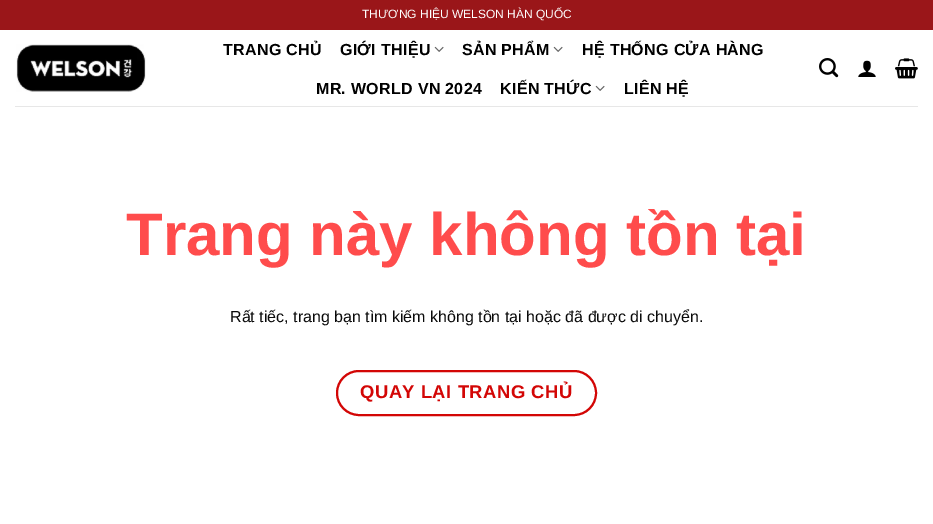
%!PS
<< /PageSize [933 524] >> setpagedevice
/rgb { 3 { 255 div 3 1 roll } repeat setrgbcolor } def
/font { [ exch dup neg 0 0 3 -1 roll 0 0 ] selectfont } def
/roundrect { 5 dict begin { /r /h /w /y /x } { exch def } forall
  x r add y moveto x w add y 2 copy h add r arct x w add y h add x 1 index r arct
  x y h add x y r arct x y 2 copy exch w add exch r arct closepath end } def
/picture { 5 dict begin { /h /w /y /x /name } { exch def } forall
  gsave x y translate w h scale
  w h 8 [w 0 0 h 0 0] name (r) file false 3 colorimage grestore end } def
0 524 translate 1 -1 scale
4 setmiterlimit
255 255 255 rgb
0 0 933 524 rectfill
154 22 25 rgb
0 0 933 30 rectfill
(img/1.rgb) 16 44 130 48 picture
(img/2.rgb) 434 46 10 6 picture
(img/2.rgb) 553 46 10 6 picture
(img/2.rgb) 595 85 10 6 picture
(img/3.rgb) 819 58 20 20 picture
(img/4.rgb) 858 60 18 17 picture
(img/5.rgb) 895 58 23 21 picture
231 231 231 rgb
15 106 903 1 rectfill
211 6 5 rgb
2 setlinewidth
337 371 259 44 22 roundrect stroke
/LiberationSans-Regular 12 font
255 255 255 rgb
362 18 moveto (THƯƠNG HIỆU WELSON HÀN QUỐC) show
/LiberationSans-Bold 16 font
0 0 0 rgb
223 55 moveto 0.3 0 (TRANG CHỦ) ashow
340 55 moveto 0.3 0 (GIỚI THIỆU) ashow
462 55 moveto 0.3 0 (SẢN PHẨM) ashow
582 55 moveto 0.3 0 (HỆ THỐNG CỬA HÀNG) ashow
316 94 moveto 0.3 0 (MR. WORLD VN 2024) ashow
500 94 moveto 0.3 0 (KIẾN THỨC) ashow
624 94 moveto 0.3 0 (LIÊN HỆ) ashow
/LiberationSans-Bold 60 font
255 76 76 rgb
126 255 moveto (Trang này không tồn tại) show
/LiberationSans-Regular 16 font
10 10 10 rgb
230 322 moveto (Rất tiếc, trang bạn tìm kiếm không tồn tại hoặc đã được di chuyển.) show
/LiberationSans-Bold 18.4 font
211 6 5 rgb
360 398 moveto 0.5 0 (QUAY LẠI TRANG CHỦ) ashow
showpage
